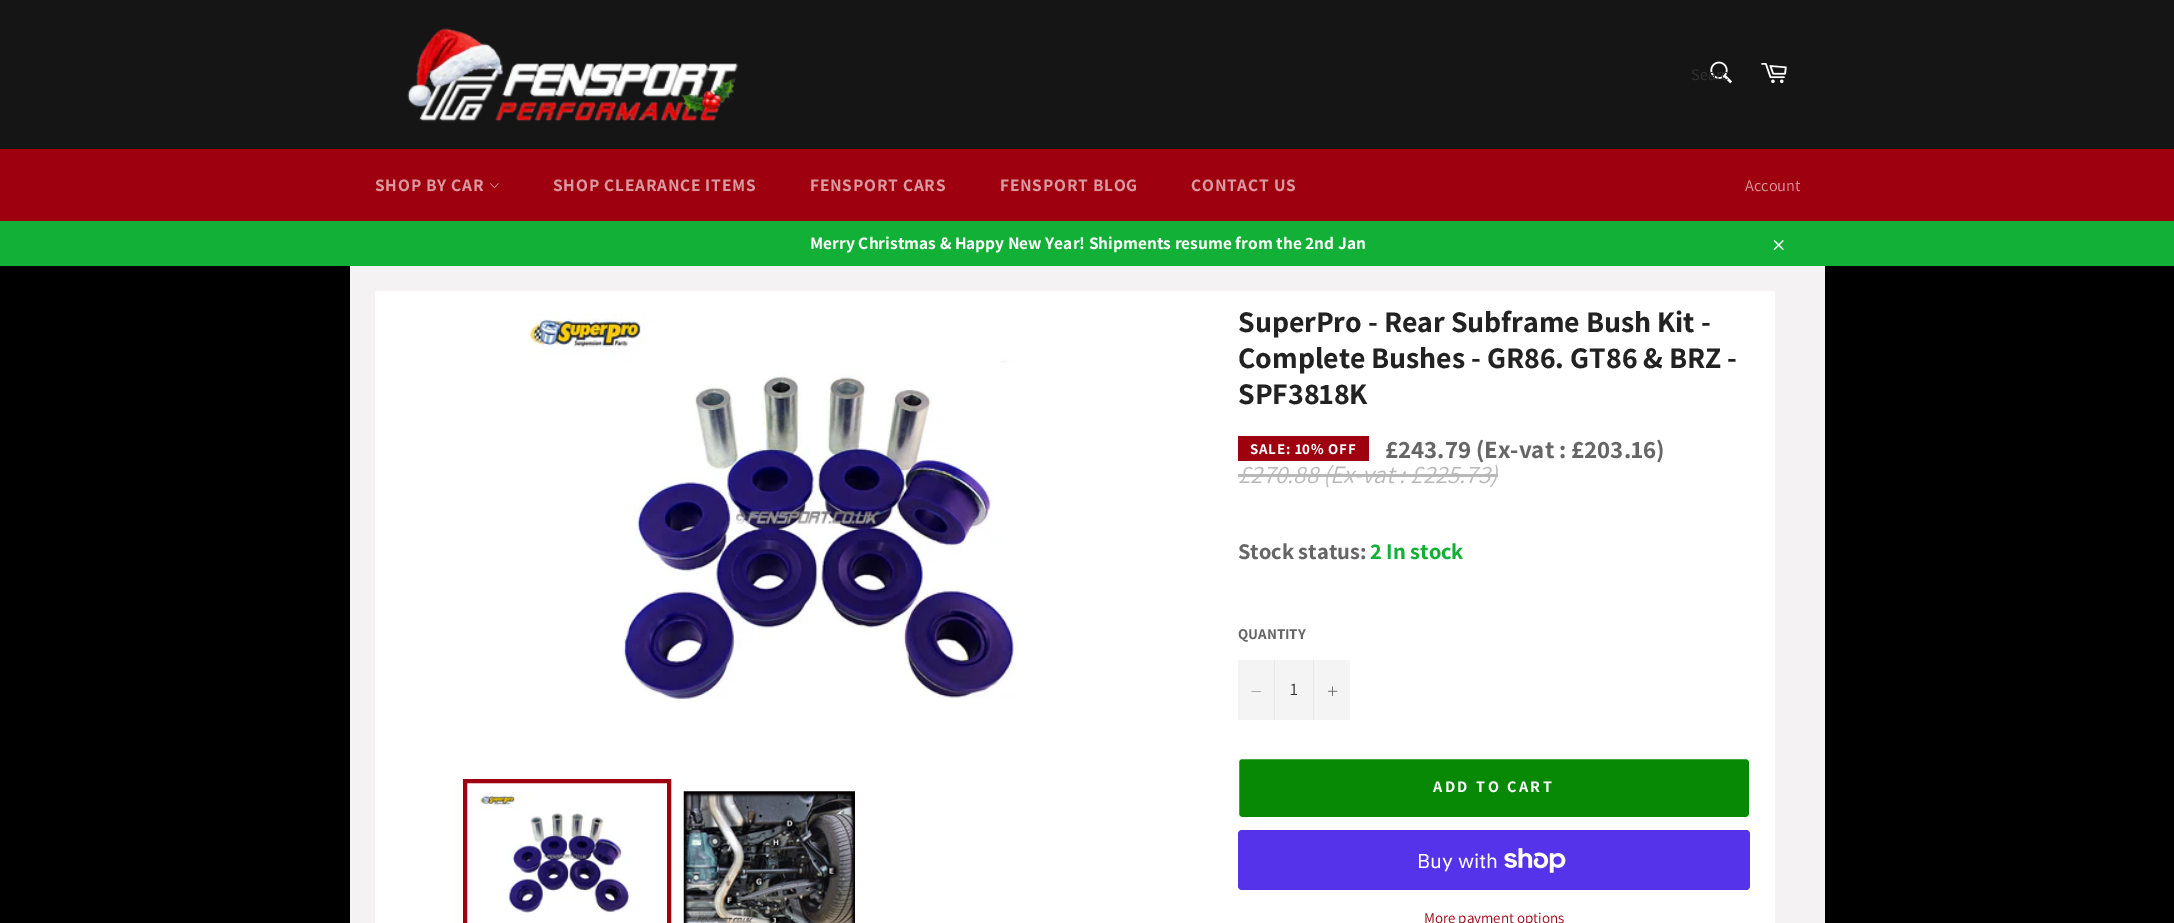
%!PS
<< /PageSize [2174 923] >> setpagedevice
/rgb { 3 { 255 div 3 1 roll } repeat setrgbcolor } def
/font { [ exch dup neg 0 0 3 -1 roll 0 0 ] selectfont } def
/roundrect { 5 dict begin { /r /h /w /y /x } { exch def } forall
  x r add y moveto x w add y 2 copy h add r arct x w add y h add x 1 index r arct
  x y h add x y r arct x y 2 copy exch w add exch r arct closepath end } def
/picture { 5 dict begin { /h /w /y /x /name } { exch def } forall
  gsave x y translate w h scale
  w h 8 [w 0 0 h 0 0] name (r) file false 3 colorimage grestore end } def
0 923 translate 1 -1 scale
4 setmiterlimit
0 0 0 rgb
0 0 2174 923 rectfill
21 21 21 rgb
0 0 2174 149 rectfill
(img/1.rgb) 407 28 331 94 picture
(img/2.rgb) 1710 61 22 23 picture
(img/3.rgb) 1761 63 26 21 picture
159 0 15 rgb
0 149 2174 72 rectfill
(img/4.rgb) 490 183 9 6 picture
18 176 54 rgb
0 221 2174 45 rectfill
(img/5.rgb) 1773 240 11 10 picture
245 242 244 rgb
350 266 1475 657 rectfill
255 255 255 rgb
375 291 1400 632 rectfill
(img/6.rgb) 529 314 488 385 picture
(img/7.rgb) 475 791 157 124 picture
159 0 15 rgb
4 setlinewidth
465 781 204 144 rectstroke
(img/8.rgb) 683 791 172 132 picture
[
  [1238 436 131 25 159 0 15]
  [1238 474 260 3 185 185 185]
  [1238 660 112 60 244 244 244]
  [1274 660 1 60 231 231 231]
] { aload pop rgb rectfill } forall
102 102 102 rgb
1261 691 moveto 1261 691.5 lineto 1251.5 691.5 lineto 1251.5 691 lineto closepath eofill
231 231 231 rgb
1313 660 1 60 rectfill
(img/9.rgb) 1328 686 10 10 picture
8 137 5 rgb
1238.5 758.5 511 59 3.5 roundrect gsave fill grestore
255 255 255 rgb
1 setlinewidth
stroke
84 51 235 rgb
1238 830 512 60 4 roundrect fill
(img/10.rgb) 1504 848 62 25 picture
/Assistant-Regular 16.25 font
51 51 51 rgb
1691 80 moveto (Searc) show
/Assistant-Bold 17.5 font
217 153 159 rgb
375 191 moveto 0.75 0 (SHOP BY CAR) ashow
553 191 moveto 0.75 0 (SHOP CLEARANCE ITEMS) ashow
810 191 moveto 0.75 0 (FENSPORT CARS) ashow
1000 191 moveto 0.75 0 (FENSPORT BLOG) ashow
1191 191 moveto 0.75 0 (CONTACT US) ashow
/Assistant-Regular 16.25 font
1745 191 moveto (Account) show
/Assistant-Bold 17.5 font
255 255 255 rgb
810 249 moveto (Merry Christmas & Happy New Year! Shipments resume from the 2nd Jan) show
/Assistant-Bold 30 font
34 34 34 rgb
[
  [(SuperPro - Rear Subframe Bush Kit -) 1238 332]
  [(Complete Bushes - GR86. GT86 & BRZ -) 1238 368]
  [(SPF3818K) 1238 404]
] { aload pop moveto show } forall
/Assistant-Bold 15 font
255 255 255 rgb
1250 454 moveto 0.75 0 (SALE: 10% OFF) ashow
/Assistant-Bold 25 font
102 102 102 rgb
1385 458 moveto (£243.79 \(Ex-vat : £203.16\)) show
/Assistant-Italic 25 font
185 185 185 rgb
1238 483 moveto (£270.88 \(Ex-vat : £225.73\)) show
/Assistant-Bold 22.5 font
102 102 102 rgb
1238 559 moveto (Stock status:) show
18 176 54 rgb
1370 559 moveto (2 In stock) show
/Assistant-Bold 15 font
102 102 102 rgb
1238 639 moveto (QUANTITY) show
/Assistant-Regular 17.5 font
51 51 51 rgb
1290 695 moveto (1) show
/Assistant-Bold 16.25 font
255 255 255 rgb
1433 792 moveto 2.5 0 (ADD TO CART) ashow
/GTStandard-Regular 20 font
1417 868 moveto (Buy with) show
/Assistant-Regular 15 font
159 0 15 rgb
1424 923 moveto (More payment options) show
showpage
